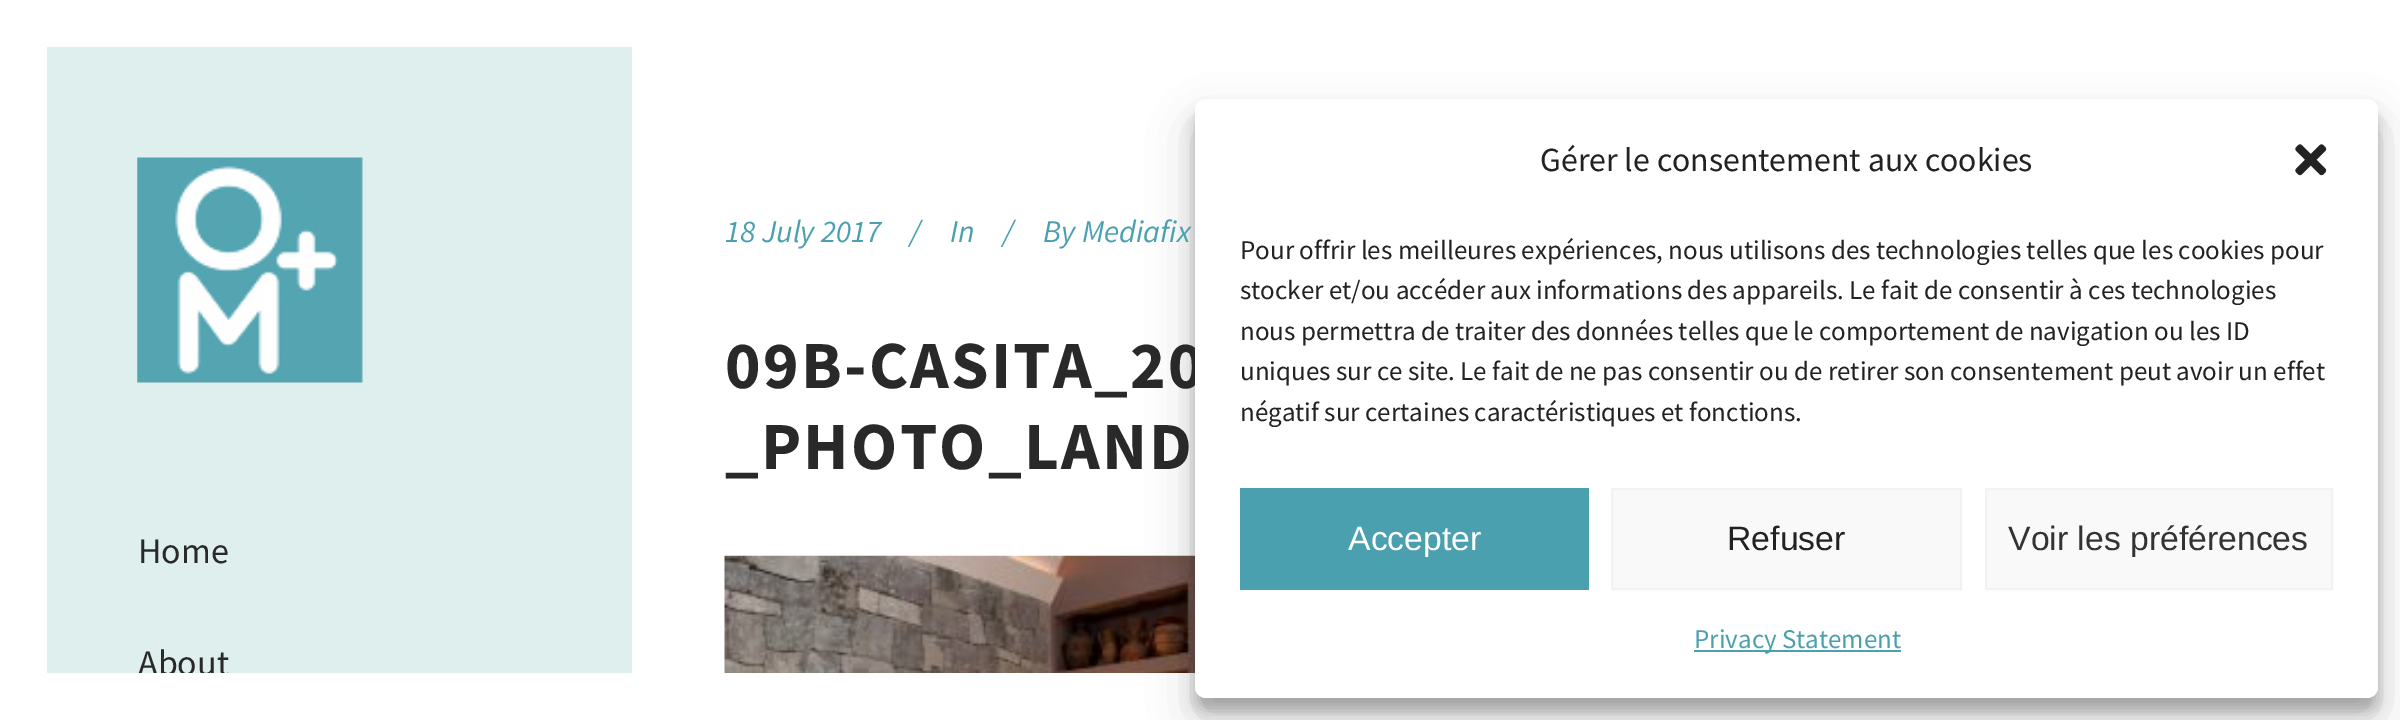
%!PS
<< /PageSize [2400 720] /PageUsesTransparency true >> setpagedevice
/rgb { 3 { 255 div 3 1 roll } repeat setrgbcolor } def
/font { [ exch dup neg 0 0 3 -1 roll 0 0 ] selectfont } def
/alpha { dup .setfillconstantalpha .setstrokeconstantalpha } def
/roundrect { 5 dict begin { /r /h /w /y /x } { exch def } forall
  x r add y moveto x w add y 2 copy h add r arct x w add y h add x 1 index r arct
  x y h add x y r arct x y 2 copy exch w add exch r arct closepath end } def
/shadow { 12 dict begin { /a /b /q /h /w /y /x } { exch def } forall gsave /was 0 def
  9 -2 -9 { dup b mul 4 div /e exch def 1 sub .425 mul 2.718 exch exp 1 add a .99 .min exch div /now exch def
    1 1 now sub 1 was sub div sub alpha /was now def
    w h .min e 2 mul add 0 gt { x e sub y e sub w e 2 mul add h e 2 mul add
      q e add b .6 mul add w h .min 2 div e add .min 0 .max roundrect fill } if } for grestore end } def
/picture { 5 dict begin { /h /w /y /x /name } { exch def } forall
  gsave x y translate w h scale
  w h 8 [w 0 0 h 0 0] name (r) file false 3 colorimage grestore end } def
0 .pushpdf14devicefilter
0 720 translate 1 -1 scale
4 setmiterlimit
255 255 255 rgb
0 0 2400 720 rectfill
(img/1.rgb) 724 555 471 118 picture
222 239 237 rgb
47 47 585 626 rectfill
(img/2.rgb) 137 157 226 226 picture
0 0 0 rgb
1195 113 1183 598 11 7 0.23 shadow
1195 122 1183 598 11 22.5 0.19 shadow
/SourceSansPro-Italic 31.5 font
74 160 174 rgb
[
  [(18 July 2017) 725 242]
  [(/) 910 242]
  [(In) 950 242]
  [(/) 1003 242]
  [(By Mediafix) 1043 242]
] { aload pop moveto show } forall
/SourceSansPro-Bold 67.5 font
41 41 41 rgb
725 388 moveto 2.25 0 (09B-CASITA_20) ashow
725 469 moveto 2.25 0 (_PHOTO_LAND) ashow
/SourceSansPro-Regular 36 font
138 563 moveto (Home) show
138 675 moveto (About) show
255 255 255 rgb
138 673 91 3 rectfill
1195 99 1183 599 11 roundrect fill
/SourceSansPro-Regular 33.75 font
34 34 34 rgb
1540 171 moveto (Gérer le consentement aux cookies) show
(img/3.rgb) 2295 144 32 32 picture
/SourceSansPro-Regular 27 font
[
  [(Pour offrir les meilleures expériences, nous utilisons des technologies telles que les cookies pour) 1240 259]
  [(stocker et/ou accéder aux informations des appareils. Le fait de consentir à ces technologies) 1240 299]
  [(nous permettra de traiter des données telles que le comportement de navigation ou les ID) 1240 340]
  [(uniques sur ce site. Le fait de ne pas consentir ou de retirer son consentement peut avoir un effet) 1240 380]
  [(négatif sur certaines caractéristiques et fonctions.) 1240 421]
] { aload pop moveto show } forall
74 160 174 rgb
1240 488 349 102 rectfill
/LiberationSans-Regular 33.75 font
255 255 255 rgb
1348 550 moveto (Accepter) show
249 249 249 rgb
1612 489 moveto 1961 489 lineto 1961 589 lineto 1612 589 lineto closepath gsave fill grestore
242 242 242 rgb
2 setlinewidth
stroke
34 34 34 rgb
1727 550 moveto (Refuser) show
249 249 249 rgb
1986 489 moveto 2332 489 lineto 2332 589 lineto 1986 589 lineto closepath gsave fill grestore
242 242 242 rgb
stroke
51 51 51 rgb
2008 550 moveto (Voir les préférences) show
74 160 174 rgb
1694 650 207 2 rectfill
/SourceSansPro-Regular 27 font
1694 648 moveto (Privacy Statement) show
.poppdf14devicefilter showpage
